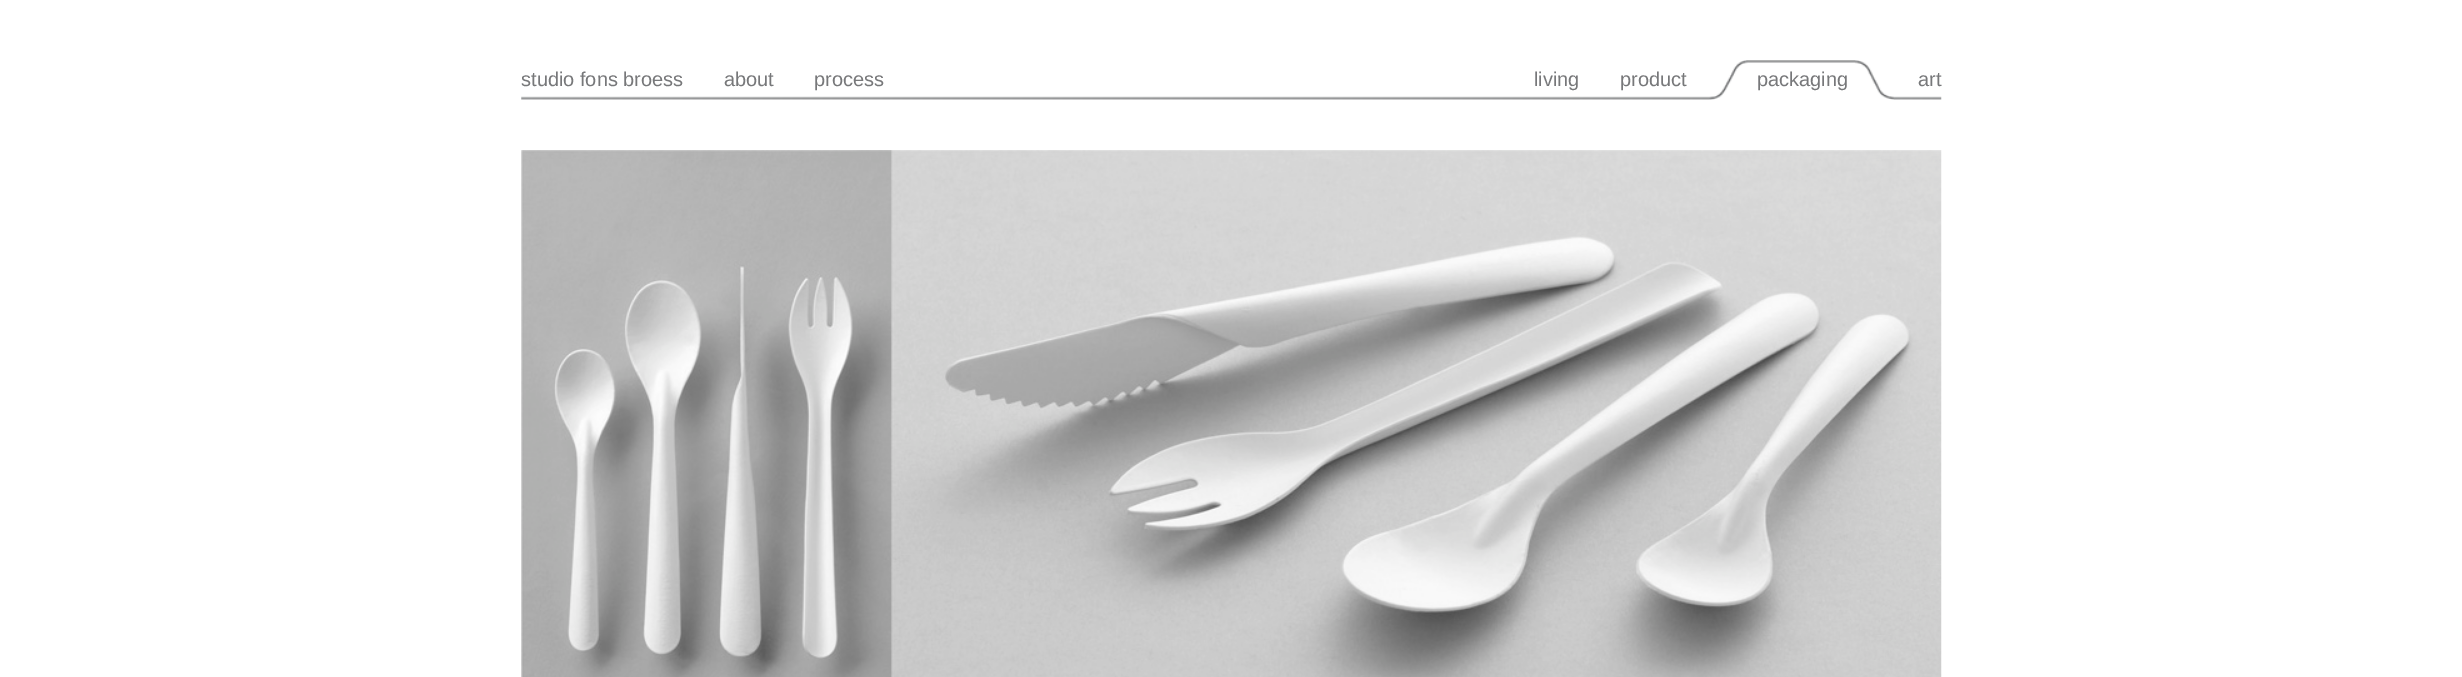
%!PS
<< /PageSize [2462 677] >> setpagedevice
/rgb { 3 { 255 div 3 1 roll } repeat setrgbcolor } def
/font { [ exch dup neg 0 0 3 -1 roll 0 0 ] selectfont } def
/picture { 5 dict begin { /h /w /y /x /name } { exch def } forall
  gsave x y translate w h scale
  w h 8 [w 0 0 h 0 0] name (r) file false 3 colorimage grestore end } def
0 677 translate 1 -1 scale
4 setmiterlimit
255 255 255 rgb
0 0 2462 677 rectfill
(img/1.rgb) 521 96 1421 4 picture
(img/2.rgb) 1709 60 129 40 picture
(img/3.rgb) 1838 60 56 40 picture
(img/4.rgb) 521 150 1421 527 picture
/LiberationSans-Regular 20 font
119 120 122 rgb
[
  [(studio fons broess) 521 86]
  [(about) 724 86]
  [(process) 814 86]
  [(living) 1534 86]
  [(product) 1620 86]
  [(packaging) 1757 86]
  [(art) 1918 86]
] { aload pop moveto show } forall
showpage
